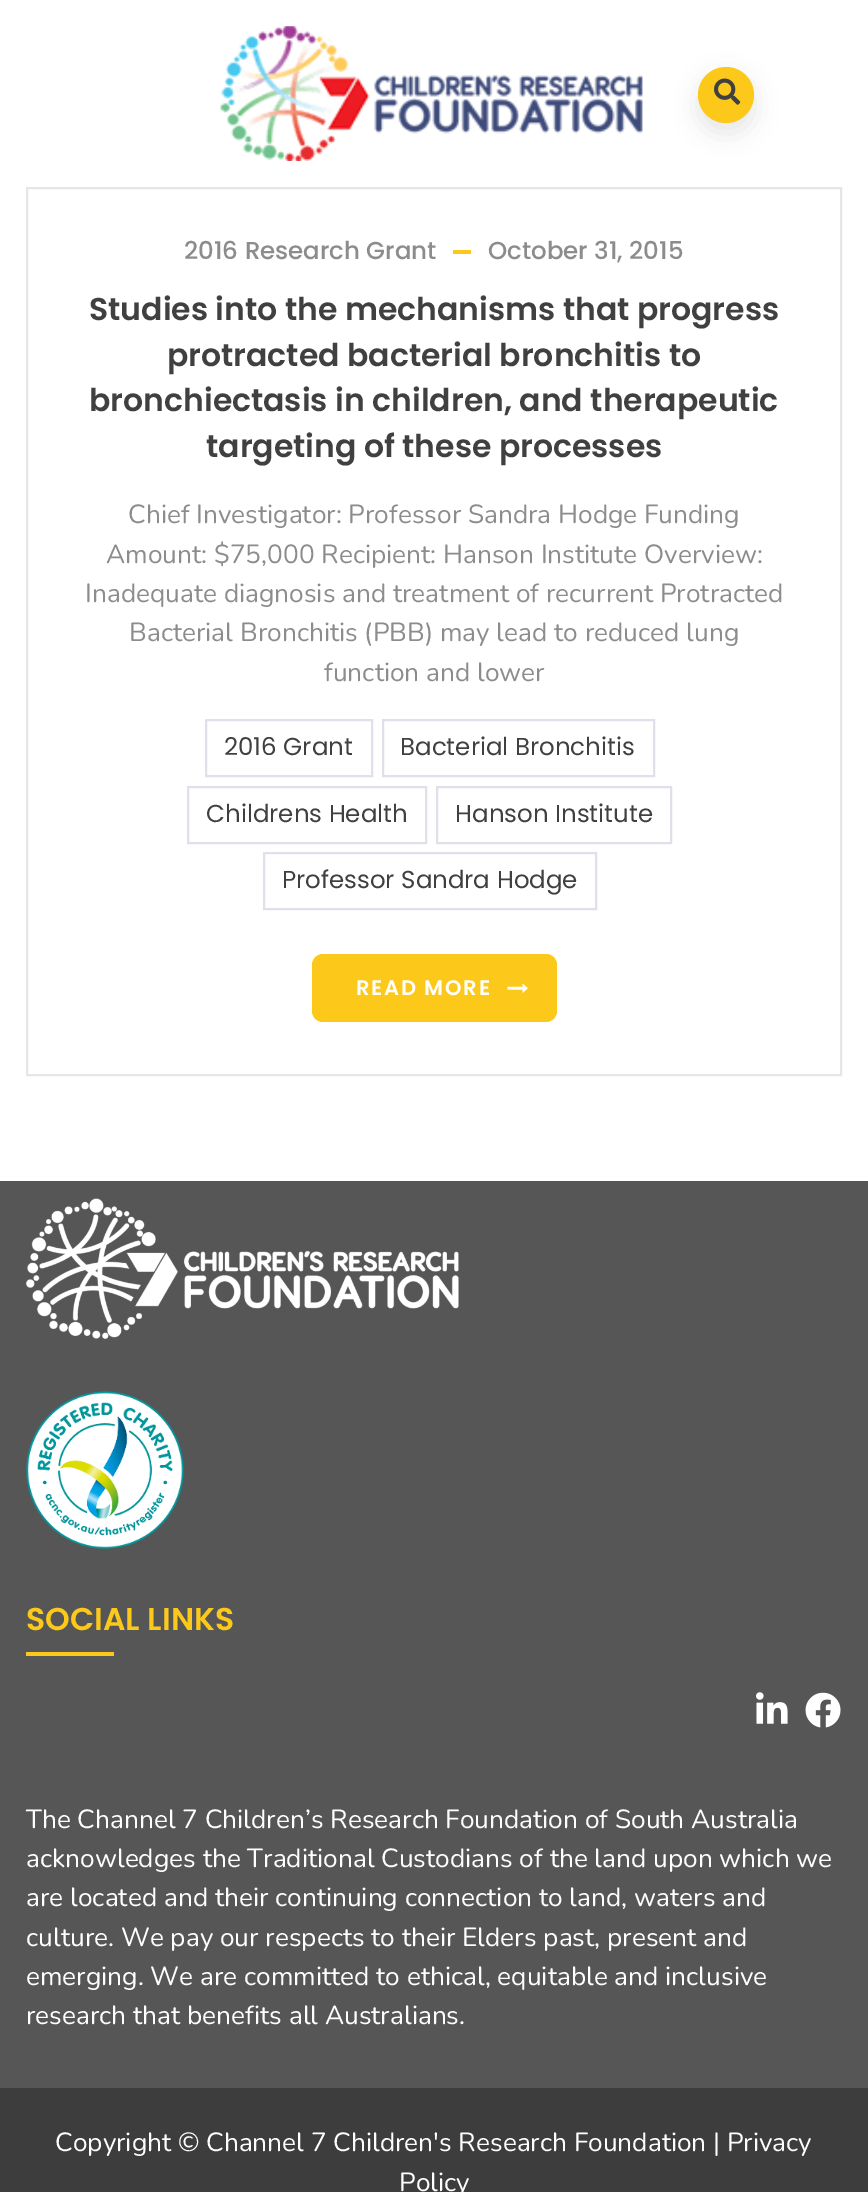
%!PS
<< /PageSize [868 2192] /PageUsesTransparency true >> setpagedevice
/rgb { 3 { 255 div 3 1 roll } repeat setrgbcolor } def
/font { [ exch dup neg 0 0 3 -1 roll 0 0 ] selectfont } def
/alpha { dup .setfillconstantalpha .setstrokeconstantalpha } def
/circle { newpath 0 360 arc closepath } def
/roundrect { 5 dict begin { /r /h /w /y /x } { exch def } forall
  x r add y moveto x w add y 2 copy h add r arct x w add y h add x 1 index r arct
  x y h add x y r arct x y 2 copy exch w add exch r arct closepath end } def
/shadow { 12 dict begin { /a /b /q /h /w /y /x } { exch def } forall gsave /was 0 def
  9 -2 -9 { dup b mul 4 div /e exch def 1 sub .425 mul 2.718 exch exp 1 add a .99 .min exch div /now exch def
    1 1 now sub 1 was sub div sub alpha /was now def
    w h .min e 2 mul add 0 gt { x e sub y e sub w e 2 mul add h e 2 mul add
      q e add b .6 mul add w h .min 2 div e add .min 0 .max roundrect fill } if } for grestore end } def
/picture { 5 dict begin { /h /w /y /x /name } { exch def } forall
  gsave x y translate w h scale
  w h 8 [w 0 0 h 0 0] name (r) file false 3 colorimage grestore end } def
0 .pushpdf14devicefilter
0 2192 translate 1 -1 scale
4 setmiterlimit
255 255 255 rgb
0 0 868 2192 rectfill
(img/1.rgb) 220 26 423 135 picture
0 0 0 rgb
698 77 56 56 28 12 0.1 shadow
252 201 27 rgb
726 95 28 circle fill
(img/2.rgb) 714 78 27 27 picture
230 230 230 rgb
2 setlinewidth
27 188 814 887 rectstroke
252 201 27 rgb
453 250 18 4 rectfill
226 223 235 rgb
206 720 166 56 rectstroke
383 720 271 56 rectstroke
188 787 238 56 rectstroke
437 787 234 56 rectstroke
264 853 332 56 rectstroke
252 201 27 rgb
312 954 245 68 11 roundrect fill
(img/3.rgb) 507 983 21 10 picture
86 86 86 rgb
0 1181 868 907 rectfill
(img/4.rgb) 26 1198 433 141 picture
(img/5.rgb) 26 1391 158 158 picture
252 201 27 rgb
26 1652 88 4 rectfill
(img/6.rgb) 756 1692 32 32 picture
(img/7.rgb) 805 1692 36 36 picture
62 61 61 rgb
0 2088 868 104 rectfill
/Poppins-Medium 24.5 font
140 140 140 rgb
184 259 moveto (2016 Research Grant) show
488 259 moveto (October 31, 2015) show
/Poppins-SemiBold 31.5 font
64 64 64 rgb
[
  [(Studies into the mechanisms that progress) 89 320]
  [(protracted bacterial bronchitis to) 167 366]
  [(bronchiectasis in children, and therapeutic) 89 411]
  [(targeting of these processes) 206 457]
] { aload pop moveto show } forall
/Nunito-Regular 26.25 font
140 140 140 rgb
[
  [(Chief Investigator: Professor Sandra Hodge Funding) 128 523]
  [(Amount: $75,000 Recipient: Hanson Institute Overview:) 106 563]
  [(Inadequate diagnosis and treatment of recurrent Protracted) 85 602]
  [(Bacterial Bronchitis \(PBB\) may lead to reduced lung) 129 641]
  [(function and lower) 324 681]
] { aload pop moveto show } forall
/Poppins-Regular 24.5 font
64 64 64 rgb
[
  [(2016 Grant) 224 755]
  [(Bacterial Bronchitis) 400 755]
  [(Childrens Health) 206 822]
  [(Hanson Institute) 455 822]
  [(Professor Sandra Hodge) 282 888]
] { aload pop moveto show } forall
/Poppins-SemiBold 21 font
255 255 255 rgb
356 995 moveto 1.75 0 (READ MORE) ashow
/Poppins-SemiBold 31.5 font
252 201 27 rgb
26 1630 moveto (SOCIAL LINKS) show
/Nunito-Regular 26.25 font
255 255 255 rgb
[
  [(The Channel 7 Children’s Research Foundation of South Australia) 26 1828]
  [(acknowledges the Traditional Custodians of the land upon which we) 26 1867]
  [(are located and their continuing connection to land, waters and) 26 1906]
  [(culture. We pay our respects to their Elders past, present and) 26 1946]
  [(emerging. We are committed to ethical, equitable and inclusive) 26 1985]
  [(research that benefits all Australians.) 26 2024]
  [(Copyright © Channel 7 Children's Research Foundation | Privacy) 55 2151]
  [(Policy) 399 2191]
] { aload pop moveto show } forall
.poppdf14devicefilter showpage
